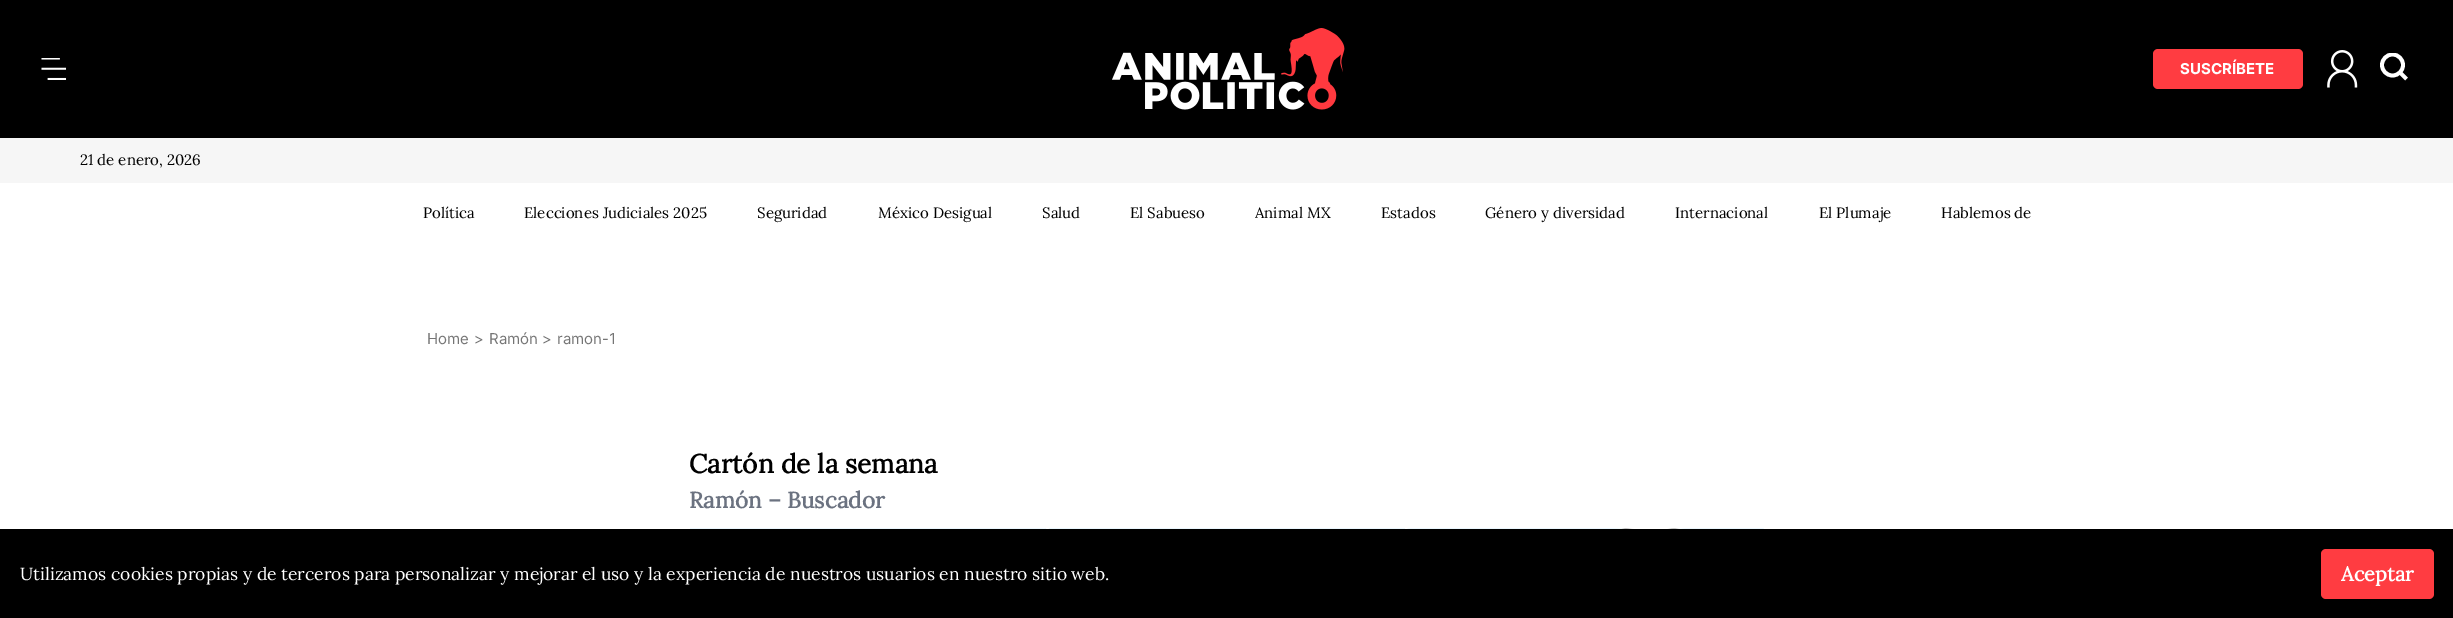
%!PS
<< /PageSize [2453 618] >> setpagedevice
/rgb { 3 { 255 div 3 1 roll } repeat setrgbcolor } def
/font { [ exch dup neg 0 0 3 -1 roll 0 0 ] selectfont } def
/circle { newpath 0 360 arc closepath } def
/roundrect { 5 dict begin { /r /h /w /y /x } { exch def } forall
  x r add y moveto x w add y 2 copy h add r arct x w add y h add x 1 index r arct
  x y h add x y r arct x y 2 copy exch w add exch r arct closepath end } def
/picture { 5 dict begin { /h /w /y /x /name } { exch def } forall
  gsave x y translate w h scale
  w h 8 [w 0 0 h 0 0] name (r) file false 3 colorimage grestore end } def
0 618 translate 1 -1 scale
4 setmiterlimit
255 255 255 rgb
0 0 2453 618 rectfill
0 0 0 rgb
0 0 2453 138 rectfill
(img/1.rgb) 1112 28 233 82 picture
(img/2.rgb) 41 58 26 22 picture
255 60 65 rgb
2153 49 150 40 5 roundrect fill
(img/3.rgb) 2327 50 31 38 picture
gsave
2380 53 34 33 rectclip
255 255 255 rgb
3.8 setlinewidth
2392.5 65 10.5 circle stroke
grestore
255 255 255 rgb
3.8 setlinewidth
2400 72.5 moveto 2406.5 79 lineto stroke
246 246 246 rgb
0 138 2453 45 rectfill
(img/4.rgb) 690 528 357 1 picture
(img/5.rgb) 1048 528 357 1 picture
(img/6.rgb) 1407 528 357 1 picture
0 0 0 rgb
0 529 2453 89 rectfill
255 60 65 rgb
2321 549 113 50 5 roundrect fill
/Inter-Bold 15 font
255 255 255 rgb
2180 74 moveto (SUSCRÍBETE) show
/Lora-Regular 15 font
0 0 0 rgb
[
  [(21 de enero, 2026) 80 165]
  [(Política) 423 218]
  [(Elecciones Judiciales 2025) 524 218]
  [(Seguridad) 757 218]
  [(México Desigual) 878 218]
  [(Salud) 1042 218]
  [(El Sabueso) 1130 218]
  [(Animal MX) 1255 218]
  [(Estados) 1381 218]
  [(Género y diversidad) 1485 218]
  [(Internacional) 1675 218]
  [(El Plumaje) 1819 218]
  [(Hablemos de) 1941 218]
] { aload pop moveto show } forall
/Inter-Regular 15 font
117 117 117 rgb
[
  [(Home) 427 344]
  [(>) 474 344]
  [(Ramón) 489 344]
  [(>) 542 344]
  [(ramon-1) 557 344]
] { aload pop moveto show } forall
/Lora-Bold 26.25 font
0 0 0 rgb
689 473 moveto (Cartón de la semana) show
/Lora-Bold 22.5 font
107 114 128 rgb
689 508 moveto (Ramón – Buscador) show
/Lora-Regular 17.5 font
255 255 255 rgb
20 580 moveto (Utilizamos cookies propias y de terceros para personalizar y mejorar el uso y la experiencia de nuestros usuarios en nuestro sitio web.) show
/Lora-Bold 20 font
2341 581 moveto (Aceptar) show
showpage
